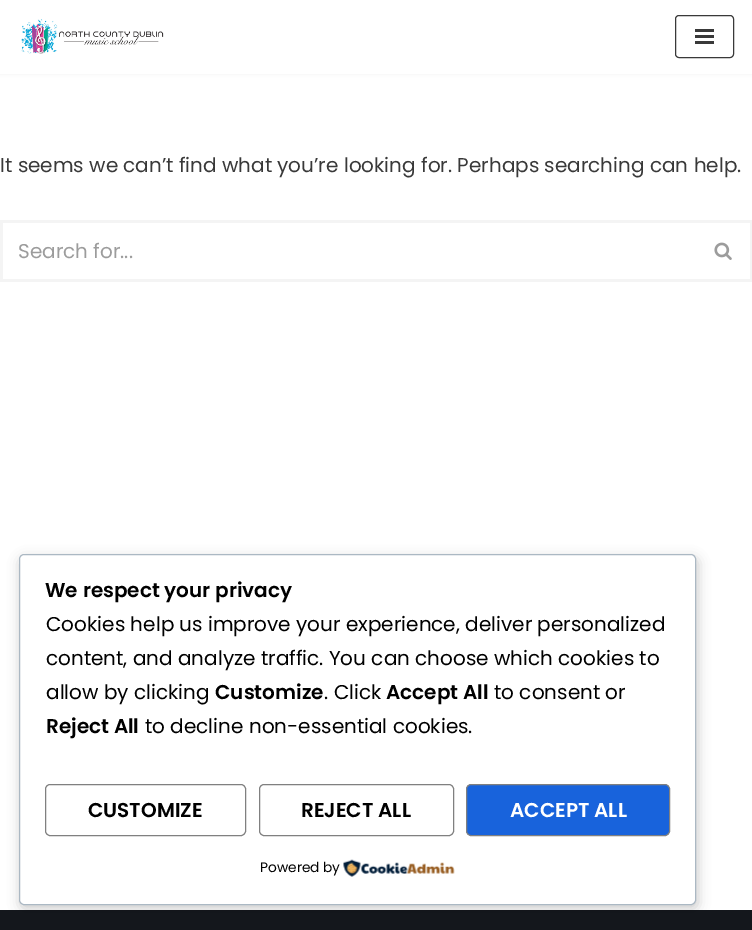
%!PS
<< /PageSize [752 930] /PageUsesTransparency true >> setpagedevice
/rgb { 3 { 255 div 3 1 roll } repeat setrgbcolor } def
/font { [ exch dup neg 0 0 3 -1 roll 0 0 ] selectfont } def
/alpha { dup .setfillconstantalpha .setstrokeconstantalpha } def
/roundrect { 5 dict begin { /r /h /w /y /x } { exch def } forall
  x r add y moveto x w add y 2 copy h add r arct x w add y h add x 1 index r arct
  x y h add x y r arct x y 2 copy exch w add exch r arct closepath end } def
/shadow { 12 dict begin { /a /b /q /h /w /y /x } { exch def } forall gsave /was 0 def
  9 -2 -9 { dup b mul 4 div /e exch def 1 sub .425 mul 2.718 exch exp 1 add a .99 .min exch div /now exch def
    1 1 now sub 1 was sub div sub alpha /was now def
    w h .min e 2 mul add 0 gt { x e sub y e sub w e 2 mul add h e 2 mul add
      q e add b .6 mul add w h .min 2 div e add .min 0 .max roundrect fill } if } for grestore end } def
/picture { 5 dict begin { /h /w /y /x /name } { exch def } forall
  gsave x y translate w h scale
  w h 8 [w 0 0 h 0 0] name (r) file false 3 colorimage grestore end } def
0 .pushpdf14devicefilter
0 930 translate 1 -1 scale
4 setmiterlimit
255 255 255 rgb
0 0 752 930 rectfill
0 0 0 rgb
0 -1 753 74 0 2 0.1 shadow
255 255 255 rgb
0 0 752 74 rectfill
(img/1.rgb) 21 19 143 35 picture
57 57 57 rgb
675.5 15.5 58 42 3.5 roundrect stroke
[
  [695 29 19 3 57 57 57]
  [695 35 19 3 57 57 57]
  [695 41 19 3 57 57 57]
  [0 220 752 3 244 244 244]
  [0 279 696 3 244 244 244]
  [0 220 3 61 244 244 244]
  [750 220 2 61 244 244 244]
  [696 279 56 3 244 244 244]
] { aload pop rgb rectfill } forall
(img/2.rgb) 714 242 18 18 picture
20 23 28 rgb
0 910 752 20 rectfill
0 0 0 rgb
20 558 678 351 5 6 0.2 shadow
255 255 255 rgb
19.5 554.5 676 350 4.5 roundrect gsave fill grestore
171 184 195 rgb
stroke
128 128 128 rgb
45.5 784.5 200 51 4.5 roundrect stroke
259.5 784.5 194 51 4.5 roundrect stroke
24 99 220 rgb
466.5 784.5 203 51 4.5 roundrect gsave fill grestore
128 128 128 rgb
stroke
(img/3.rgb) 343 859 112 18 picture
/Poppins-Regular 20 font
57 57 57 rgb
0 172 moveto (It seems we can’t find what you’re looking for. Perhaps searching can help.) show
156 156 156 rgb
18 258 moveto (Search for...) show
/Poppins-SemiBold 20 font
0 0 0 rgb
45 597 moveto (We respect your privacy) show
/Poppins-Regular 20 font
[
  [(Cookies help us improve your experience, deliver personalized) 46 631]
  [(content, and analyze traffic. You can choose which cookies to) 46 665]
  [(allow by clicking) 46 699]
] { aload pop moveto show } forall
/Poppins-SemiBold 20 font
215 699 moveto (Customize) show
/Poppins-Regular 20 font
324 699 moveto (. Click) show
/Poppins-SemiBold 20 font
386 699 moveto (Accept All) show
/Poppins-Regular 20 font
494 699 moveto (to consent or) show
/Poppins-SemiBold 20 font
46 733 moveto (Reject All) show
/Poppins-Regular 20 font
145 733 moveto (to decline non-essential cookies.) show
/Poppins-SemiBold 20 font
88 817 moveto (CUSTOMIZE) show
301 817 moveto (REJECT ALL) show
255 255 255 rgb
510 817 moveto (ACCEPT ALL) show
/Poppins-Regular 13.75 font
0 0 0 rgb
260 872 moveto (Powered by) show
.poppdf14devicefilter showpage
